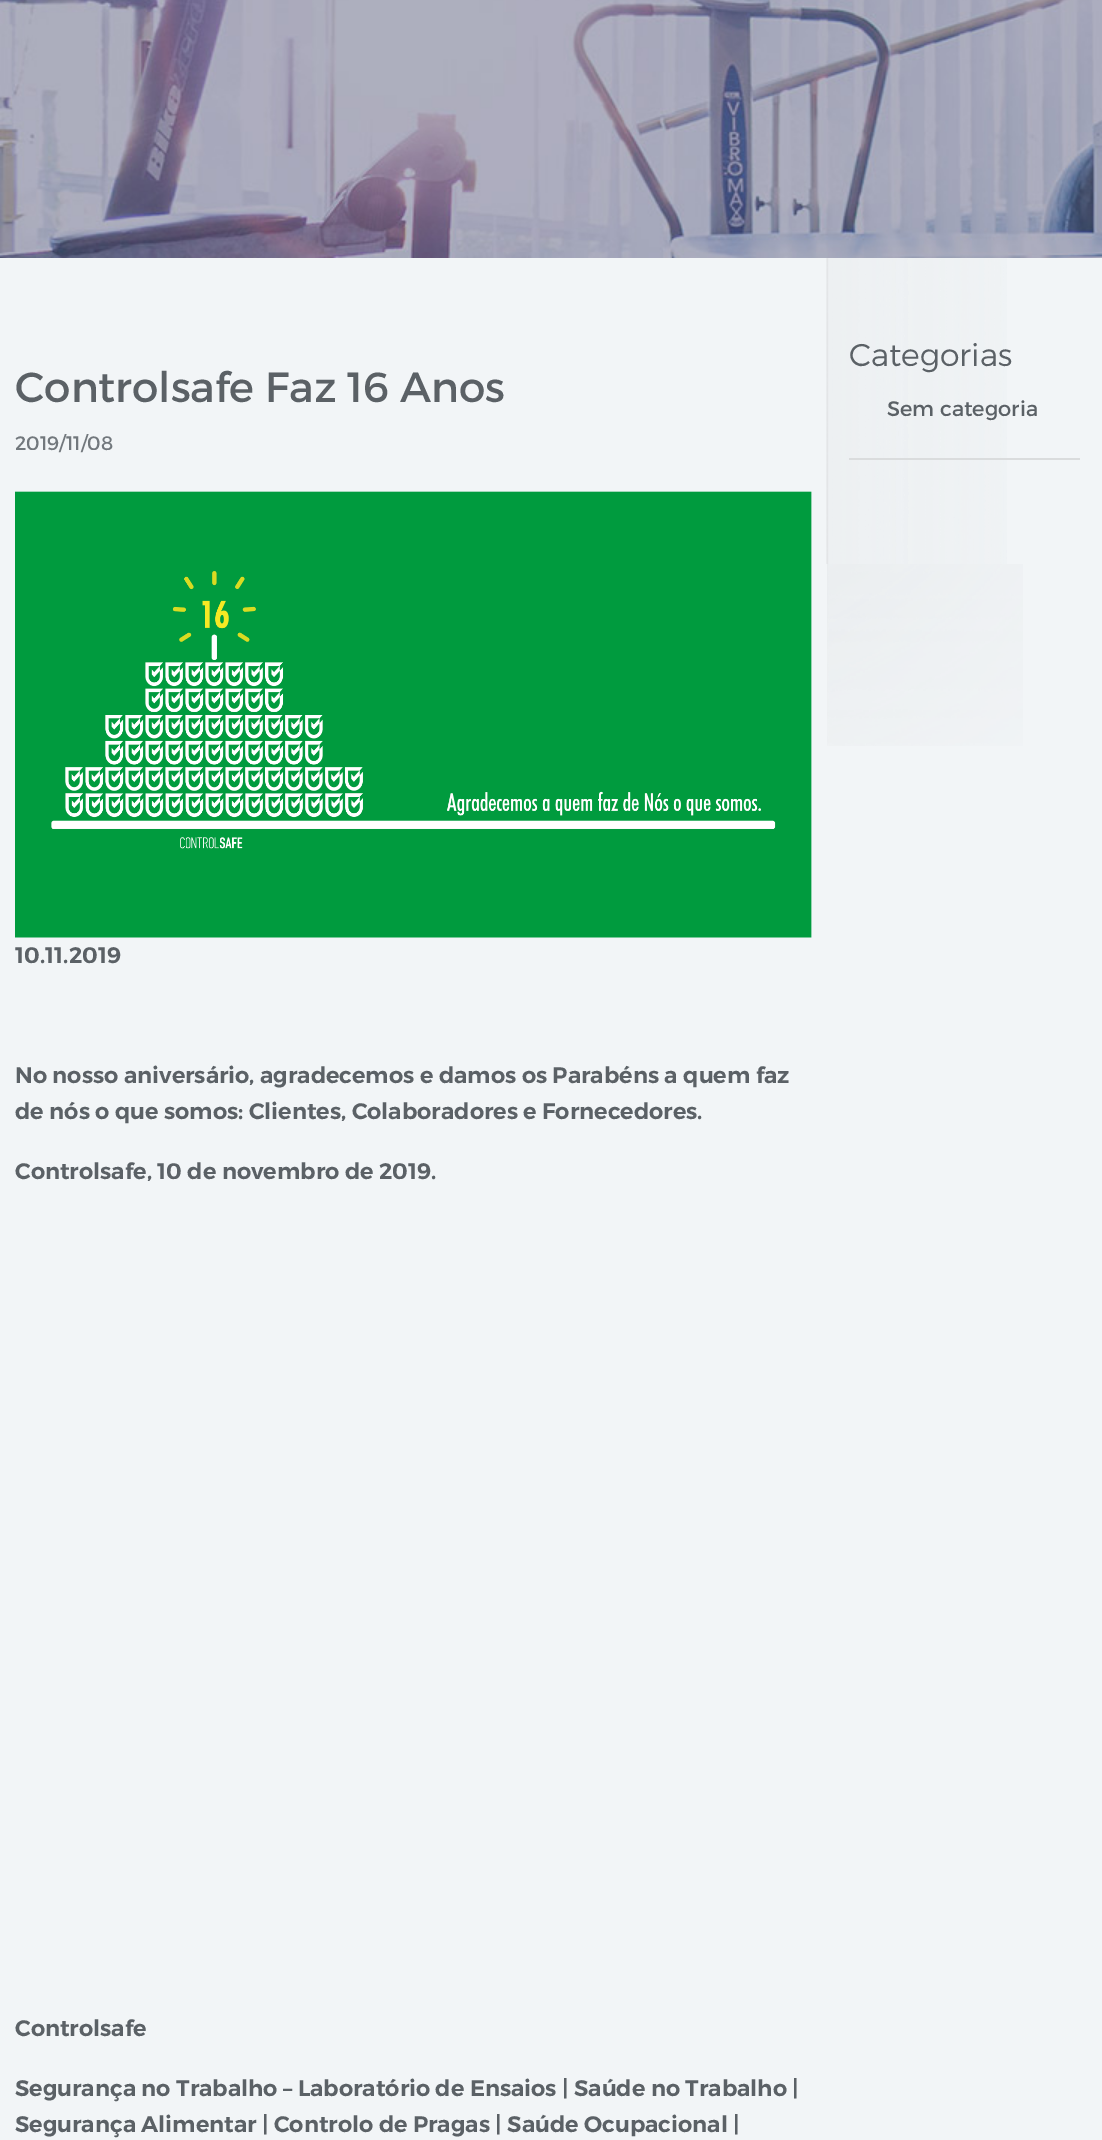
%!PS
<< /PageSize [1102 2140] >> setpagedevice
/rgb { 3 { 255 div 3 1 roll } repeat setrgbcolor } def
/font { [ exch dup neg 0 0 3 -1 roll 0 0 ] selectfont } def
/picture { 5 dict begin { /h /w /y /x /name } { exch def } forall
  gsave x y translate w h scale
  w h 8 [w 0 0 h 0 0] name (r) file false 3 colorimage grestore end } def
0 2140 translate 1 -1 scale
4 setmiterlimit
242 245 247 rgb
0 0 1102 2140 rectfill
(img/1.rgb) 0 0 1102 258 picture
(img/2.rgb) 15 491 797 447 picture
(img/3.rgb) 826 258 181 306 picture
218 220 221 rgb
849 458 231 2 rectfill
(img/4.rgb) 827 564 196 182 picture
/Montserrat-Regular 42 font
91 97 102 rgb
15 402 moveto (Controlsafe Faz 16 Anos) show
/Montserrat-Regular 19.5 font
114 120 125 rgb
15 450 moveto (2019/11/08) show
/Montserrat-SemiBold 22.5 font
91 97 102 rgb
[
  [(10.11.2019) 15 963]
  [(No nosso aniversário, agradecemos e damos os Parabéns a quem faz) 15 1083]
  [(de nós o que somos: Clientes, Colaboradores e Fornecedores.) 15 1119]
  [(Controlsafe, 10 de novembro de 2019.) 15 1179]
  [(Controlsafe) 15 2036]
  [(Segurança no Trabalho – Laboratório de Ensaios | Saúde no Trabalho |) 15 2096]
  [(Segurança Alimentar | Controlo de Pragas | Saúde Ocupacional |) 15 2132]
] { aload pop moveto show } forall
/Montserrat-Light 31.5 font
849 366 moveto (Categorias) show
/Montserrat-Regular 21 font
887 416 moveto (Sem categoria) show
showpage
